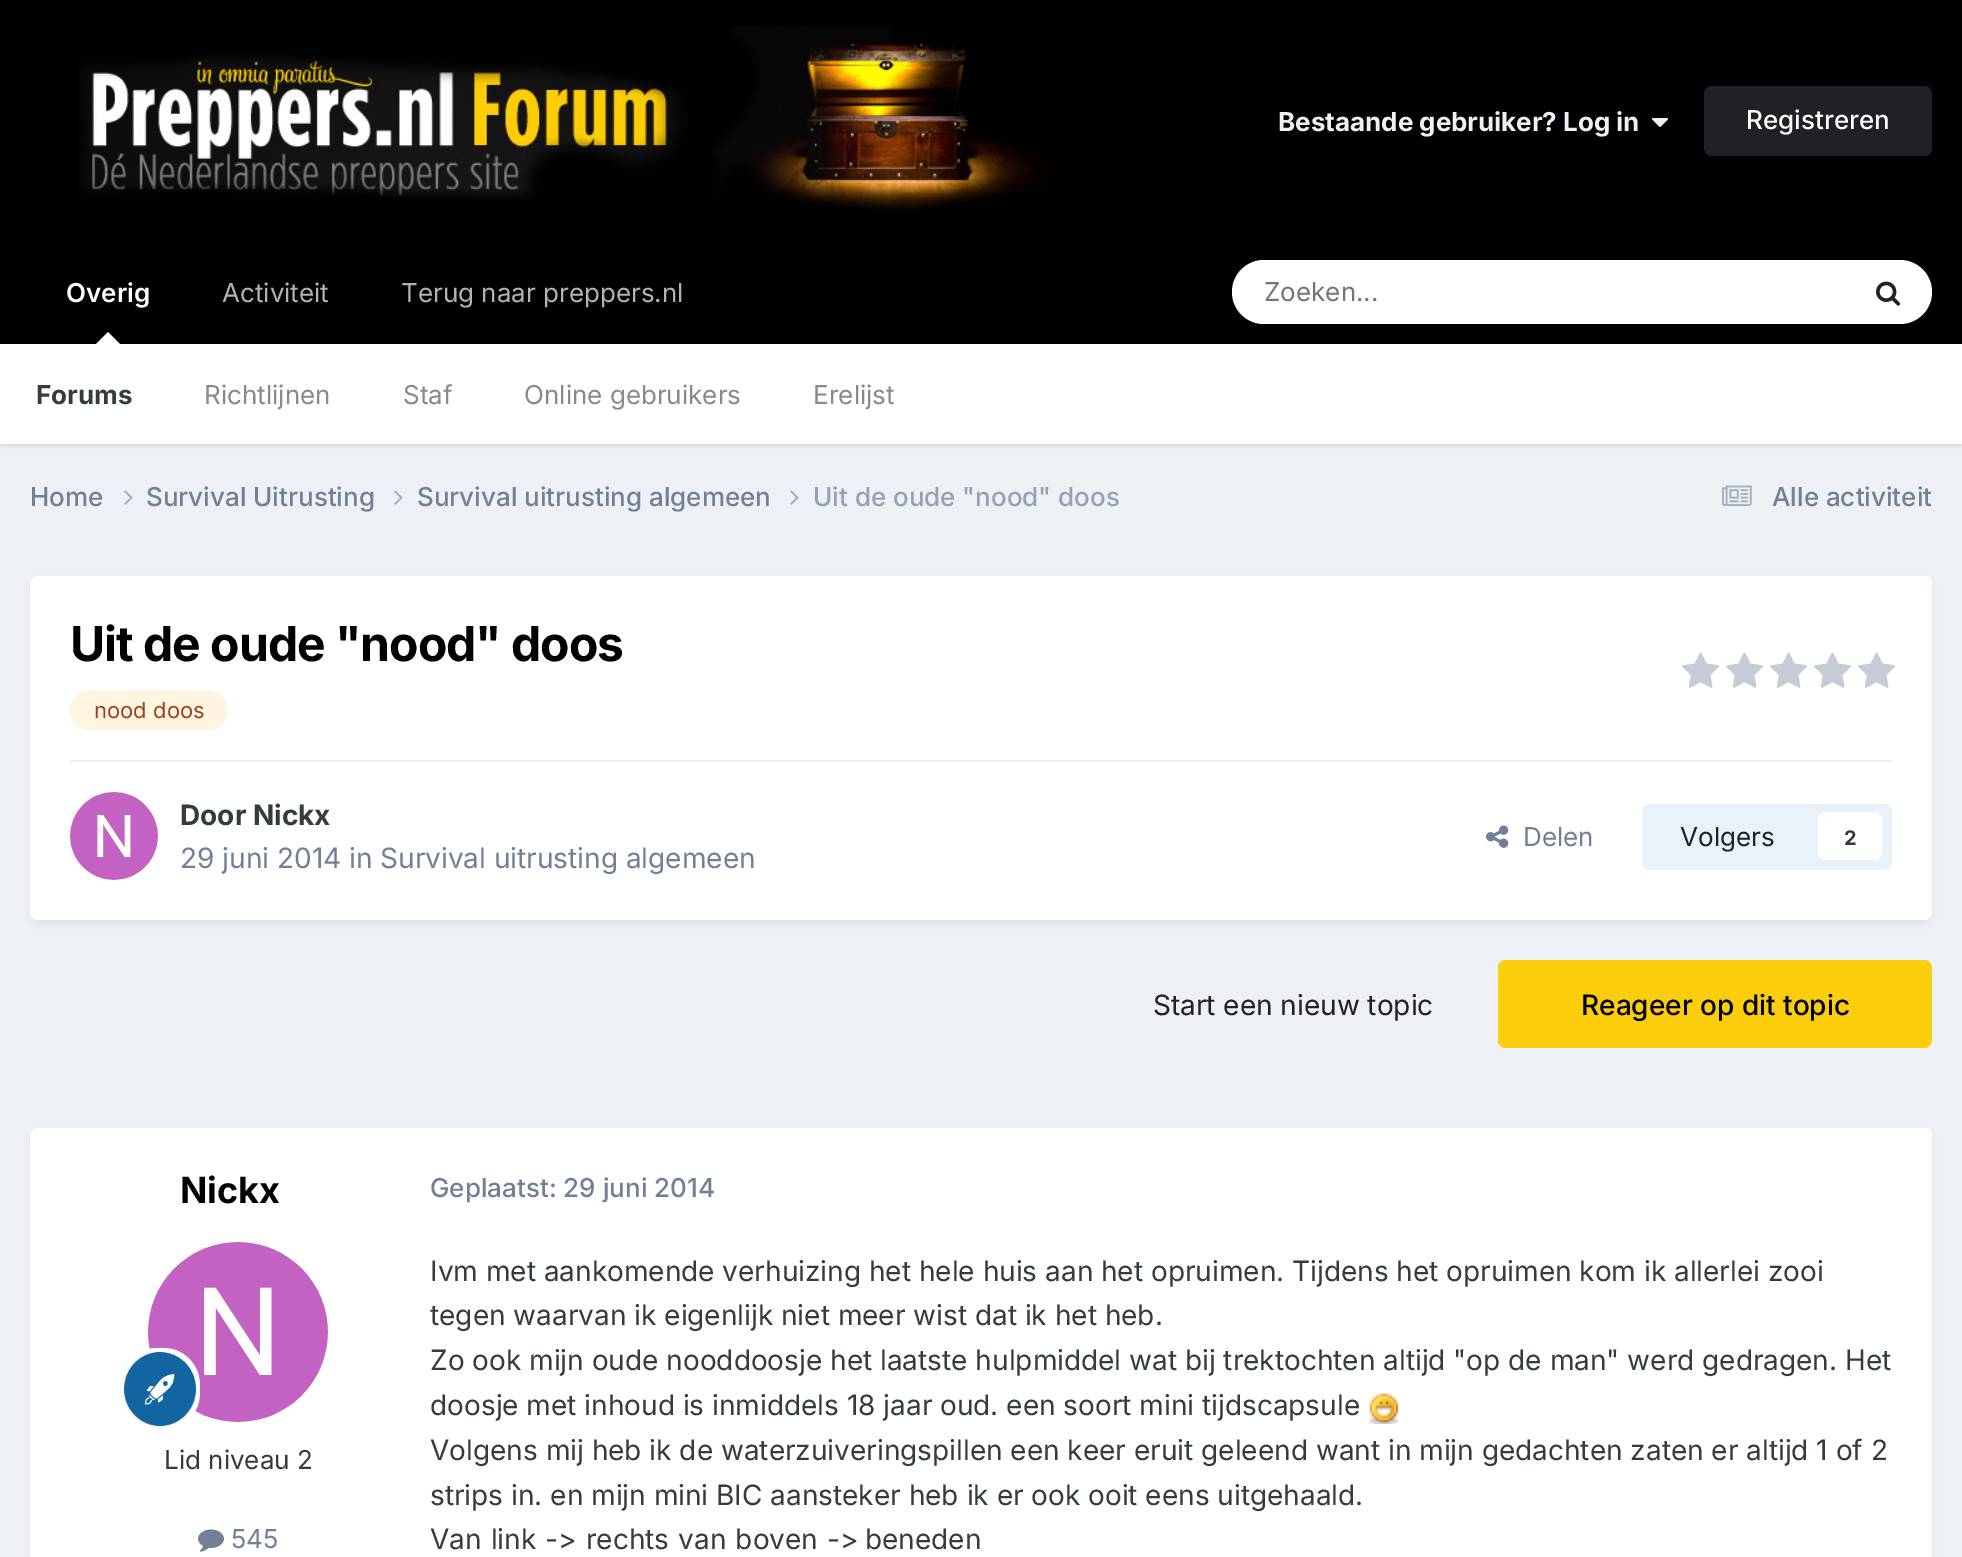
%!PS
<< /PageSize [1962 1557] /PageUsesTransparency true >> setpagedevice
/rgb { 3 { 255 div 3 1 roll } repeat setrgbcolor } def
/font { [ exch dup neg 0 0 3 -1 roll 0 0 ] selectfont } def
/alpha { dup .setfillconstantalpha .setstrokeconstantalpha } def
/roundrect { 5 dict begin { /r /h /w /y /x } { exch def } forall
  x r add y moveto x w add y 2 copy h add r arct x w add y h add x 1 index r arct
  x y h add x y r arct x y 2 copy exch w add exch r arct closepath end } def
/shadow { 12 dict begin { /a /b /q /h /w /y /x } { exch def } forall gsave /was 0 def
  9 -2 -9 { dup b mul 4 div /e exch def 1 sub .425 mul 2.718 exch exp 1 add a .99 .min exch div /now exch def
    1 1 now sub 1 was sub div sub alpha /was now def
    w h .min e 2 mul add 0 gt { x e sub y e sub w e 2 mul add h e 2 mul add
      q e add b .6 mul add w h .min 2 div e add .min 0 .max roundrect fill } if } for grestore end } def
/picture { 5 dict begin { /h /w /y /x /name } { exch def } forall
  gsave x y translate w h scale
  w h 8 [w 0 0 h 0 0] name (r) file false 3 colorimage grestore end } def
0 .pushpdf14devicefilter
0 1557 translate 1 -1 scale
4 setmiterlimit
237 240 244 rgb
0 0 1962 1557 rectfill
0 0 0 rgb
0 0 1962 344 rectfill
(img/1.rgb) 79 26 973 185 picture
(img/2.rgb) 1652 118 16 9 picture
31 33 38 rgb
1704 86 228 70 8 roundrect fill
0 0 0 rgb
0 346 1962 100 0 2 0.1 shadow
255 255 255 rgb
120 344 moveto 96 344 lineto 108 332 lineto closepath fill
1232 260 700 64 32 roundrect fill
(img/3.rgb) 1876 281 25 25 picture
0 344 1962 100 rectfill
(img/4.rgb) 124 490 9 15 picture
(img/4.rgb) 394 490 9 15 picture
(img/4.rgb) 790 490 9 15 picture
(img/5.rgb) 1722 485 30 21 picture
45 55 72 rgb
32 582 1898 340 6 4 0.1 shadow
255 255 255 rgb
30 576 1902 344 8 roundrect fill
255 244 223 rgb
70 690 158 40 20 roundrect fill
(img/6.rgb) 1682 652 37 36 picture
(img/6.rgb) 1726 652 37 36 picture
(img/6.rgb) 1770 652 37 36 picture
(img/6.rgb) 1814 652 37 36 picture
(img/6.rgb) 1858 652 37 36 picture
239 239 240 rgb
70 760 1822 2 rectfill
(img/7.rgb) 70 792 88 88 picture
(img/8.rgb) 1486 825 23 23 picture
232 242 250 rgb
1642 804 250 66 8 roundrect fill
255 255 255 rgb
1818 812 64 48 8 roundrect fill
252 205 10 rgb
1498 960 434 88 8 roundrect fill
45 55 72 rgb
32 1134 1898 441 6 4 0.1 shadow
255 255 255 rgb
30 1128 1902 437 8 roundrect fill
(img/9.rgb) 148 1242 180 180 picture
(img/10.rgb) 124 1348 76 78 picture
(img/11.rgb) 198 1529 26 23 picture
(img/12.rgb) 1368 1393 31 31 picture
/Inter-Bold 26 font
237 240 244 rgb
1278 131 moveto (Bestaande gebruiker? Log in) show
/Inter-Medium 26 font
255 255 255 rgb
1746 129 moveto (Registreren) show
/Inter-SemiBold 26 font
66 302 moveto (Overig) show
/Inter-Bold 26 font
53 60 65 rgb
36 404 moveto (Forums) show
/Inter-Regular 26 font
134 138 141 rgb
[
  [(Richtlijnen) 204 404]
  [(Staf) 403 404]
  [(Online gebruikers) 524 404]
  [(Erelijst) 813 404]
] { aload pop moveto show } forall
179 179 179 rgb
222 302 moveto (Activiteit) show
401 302 moveto (Terug naar preppers.nl) show
117 117 117 rgb
1264 301 moveto (Zoeken...) show
/Inter-Medium 26 font
113 128 150 rgb
[
  [(Home) 30 506]
  [(Survival Uitrusting) 146 506]
  [(Survival uitrusting algemeen) 417 506]
] { aload pop moveto show } forall
150 162 178 rgb
813 506 moveto (Uit de oude "nood" doos) show
113 128 150 rgb
1772 506 moveto (Alle activiteit) show
/Inter-Bold 48 font
0 0 0 rgb
70 661 moveto -1 0 (Uit de oude "nood" doos) ashow
/Inter-Regular 22 font
156 66 33 rgb
94 718 moveto (nood doos) show
/Inter-Bold 28 font
53 60 65 rgb
180 825 moveto (Door Nickx) show
/Inter-Regular 28 font
113 128 150 rgb
180 868 moveto (29 juni 2014 in Survival uitrusting algemeen) show
/Inter-Regular 26 font
1523 846 moveto (Delen) show
31 33 38 rgb
1680 846 moveto (Volgers) show
/Inter-Bold 20 font
53 60 65 rgb
1844 845 moveto (2) show
/Inter-Regular 28 font
31 33 38 rgb
1153 1015 moveto (Start een nieuw topic) show
/Inter-Medium 28 font
0 0 0 rgb
1581 1015 moveto (Reageer op dit topic) show
/Inter-Bold 36 font
180 1203 moveto (Nickx) show
/Inter-Regular 26 font
53 60 65 rgb
164 1469 moveto (Lid niveau 2) show
113 128 150 rgb
231 1548 moveto (545) show
/Inter-Medium 26 font
430 1197 moveto (Geplaatst: 29 juni 2014) show
/Inter-Regular 28 font
53 60 65 rgb
[
  [(Ivm met aankomende verhuizing het hele huis aan het opruimen. Tijdens het opruimen kom ik allerlei zooi) 430 1281]
  [(tegen waarvan ik eigenlijk niet meer wist dat ik het heb.) 430 1325]
  [(Zo ook mijn oude nooddoosje het laatste hulpmiddel wat bij trektochten altijd "op de man" werd gedragen. Het) 430 1370]
  [(doosje met inhoud is inmiddels 18 jaar oud. een soort mini tijdscapsule) 430 1415]
  [(Volgens mij heb ik de waterzuiveringspillen een keer eruit geleend want in mijn gedachten zaten er altijd 1 of 2) 430 1460]
  [(strips in. en mijn mini BIC aansteker heb ik er ook ooit eens uitgehaald.) 430 1505]
] { aload pop moveto show } forall
430 1549 moveto 1.25 0 32 (Van link -> rechts van boven ->) widthshow
865 1549 moveto 1.25 0 32 (beneden) widthshow
.poppdf14devicefilter showpage
